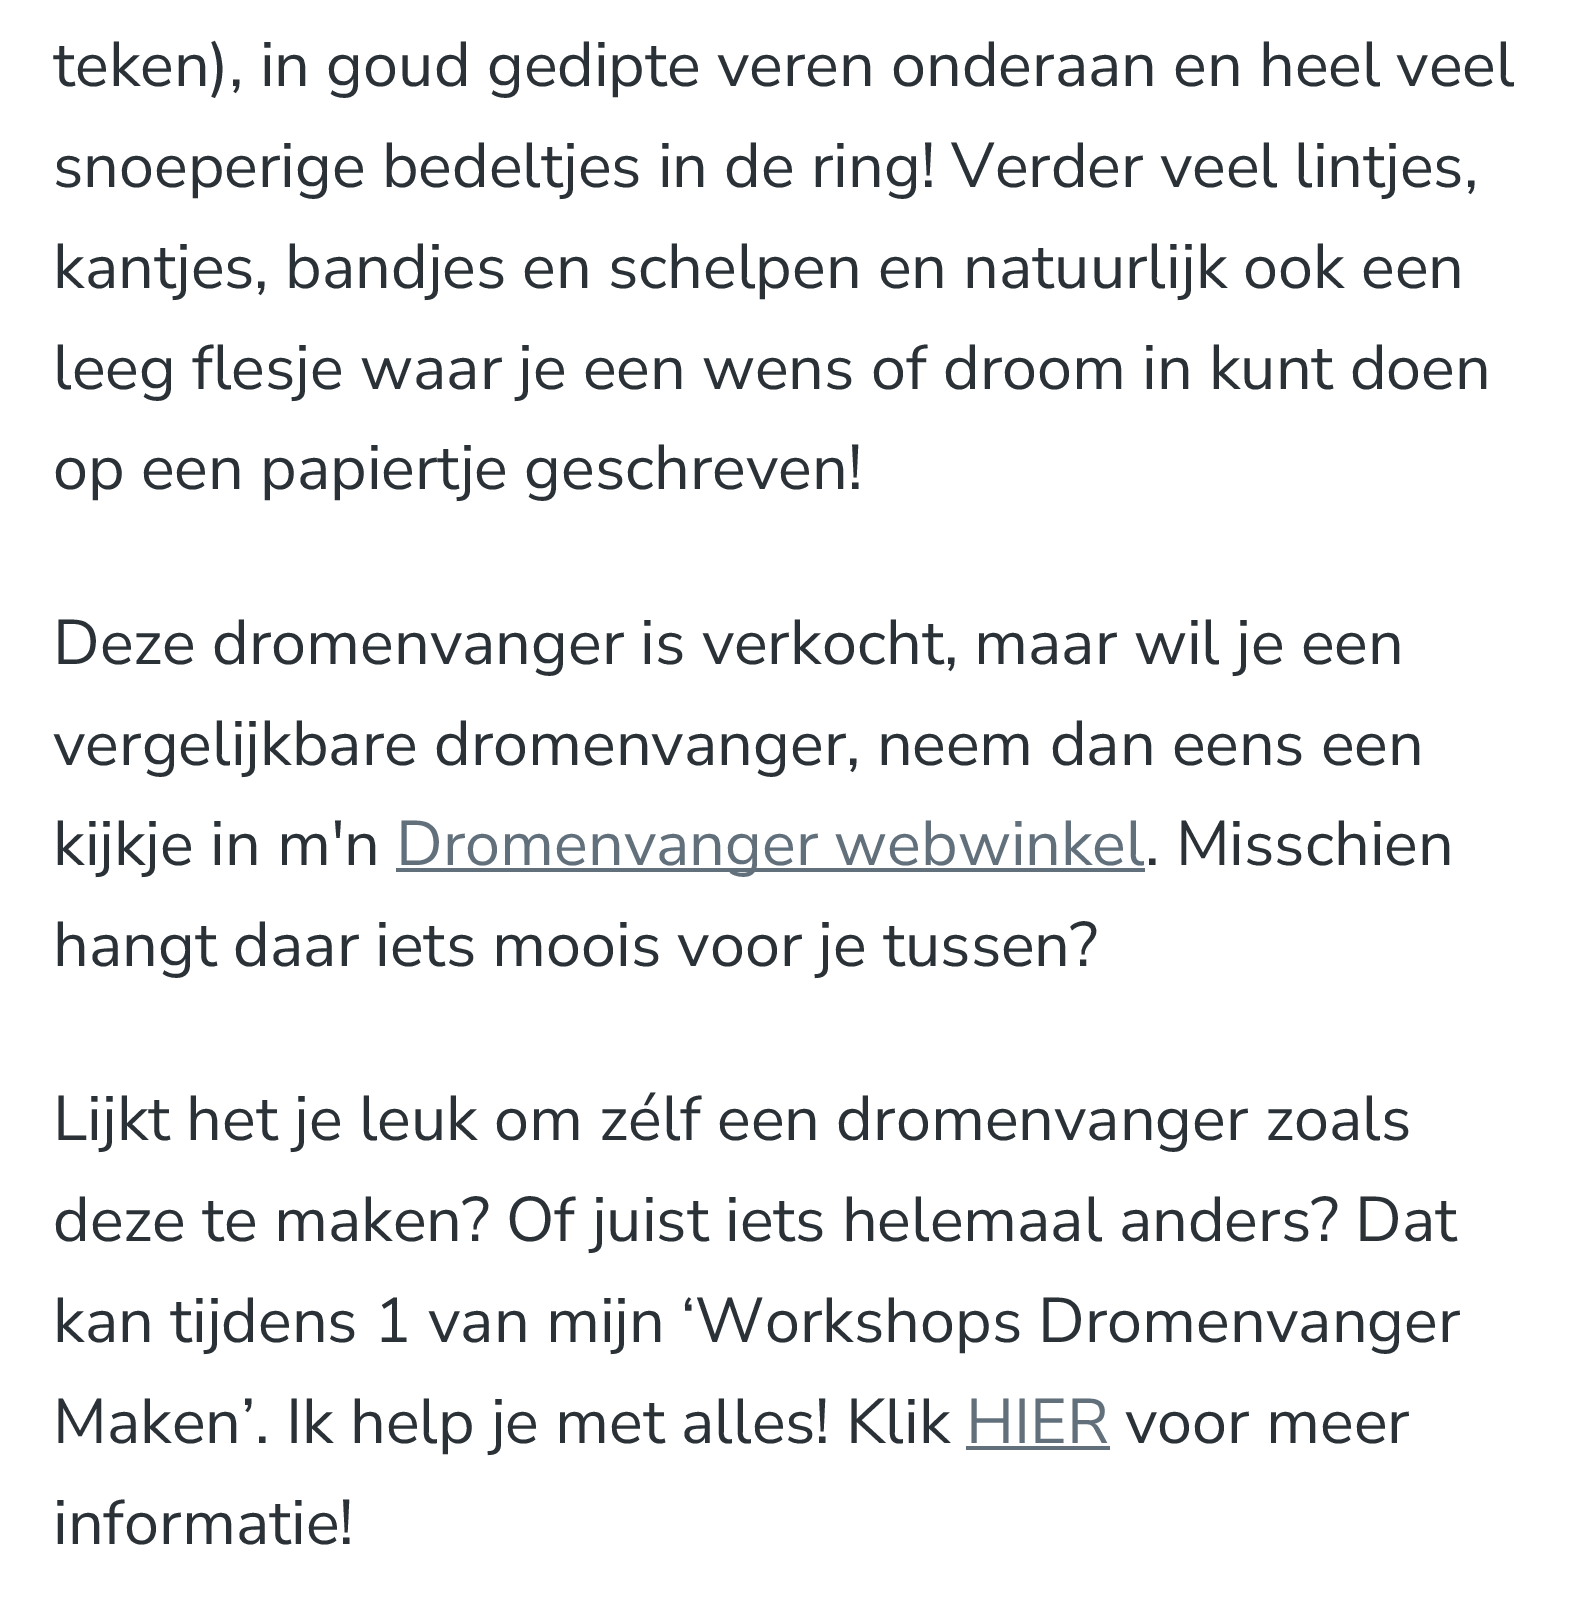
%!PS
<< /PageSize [1574 1597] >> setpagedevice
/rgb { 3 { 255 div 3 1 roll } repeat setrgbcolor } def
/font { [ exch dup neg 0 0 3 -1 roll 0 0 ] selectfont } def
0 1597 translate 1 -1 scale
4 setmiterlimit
255 255 255 rgb
0 0 1574 1597 rectfill
98 112 124 rgb
396 868 749 4 rectfill
966 1446 144 4 rectfill
/NunitoSans-Regular 63 font
42 49 55 rgb
[
  [(teken\), in goud gedipte veren onderaan en heel veel) 53 86]
  [(snoeperige bedeltjes in de ring! Verder veel lintjes,) 53 187]
  [(kantjes, bandjes en schelpen en natuurlijk ook een) 53 288]
  [(leeg flesje waar je een wens of droom in kunt doen) 53 389]
  [(op een papiertje geschreven!) 53 489]
  [(Deze dromenvanger is verkocht, maar wil je een) 53 664]
  [(vergelijkbare dromenvanger, neem dan eens een) 53 765]
  [(kijkje in m'n) 53 865]
] { aload pop moveto show } forall
98 112 124 rgb
396 865 moveto (Dromenvanger webwinkel) show
42 49 55 rgb
[
  [(. Misschien) 1145 865]
  [(hangt daar iets moois voor je tussen?) 53 966]
  [(Lijkt het je leuk om zélf een dromenvanger zoals) 53 1140]
  [(deze te maken? Of juist iets helemaal anders? Dat) 53 1241]
  [(kan tijdens 1 van mijn ‘Workshops Dromenvanger) 53 1342]
  [(Maken’. Ik help je met alles! Klik) 53 1443]
] { aload pop moveto show } forall
98 112 124 rgb
966 1443 moveto (HIER) show
42 49 55 rgb
1125 1443 moveto (voor meer) show
53 1544 moveto (informatie!) show
showpage
